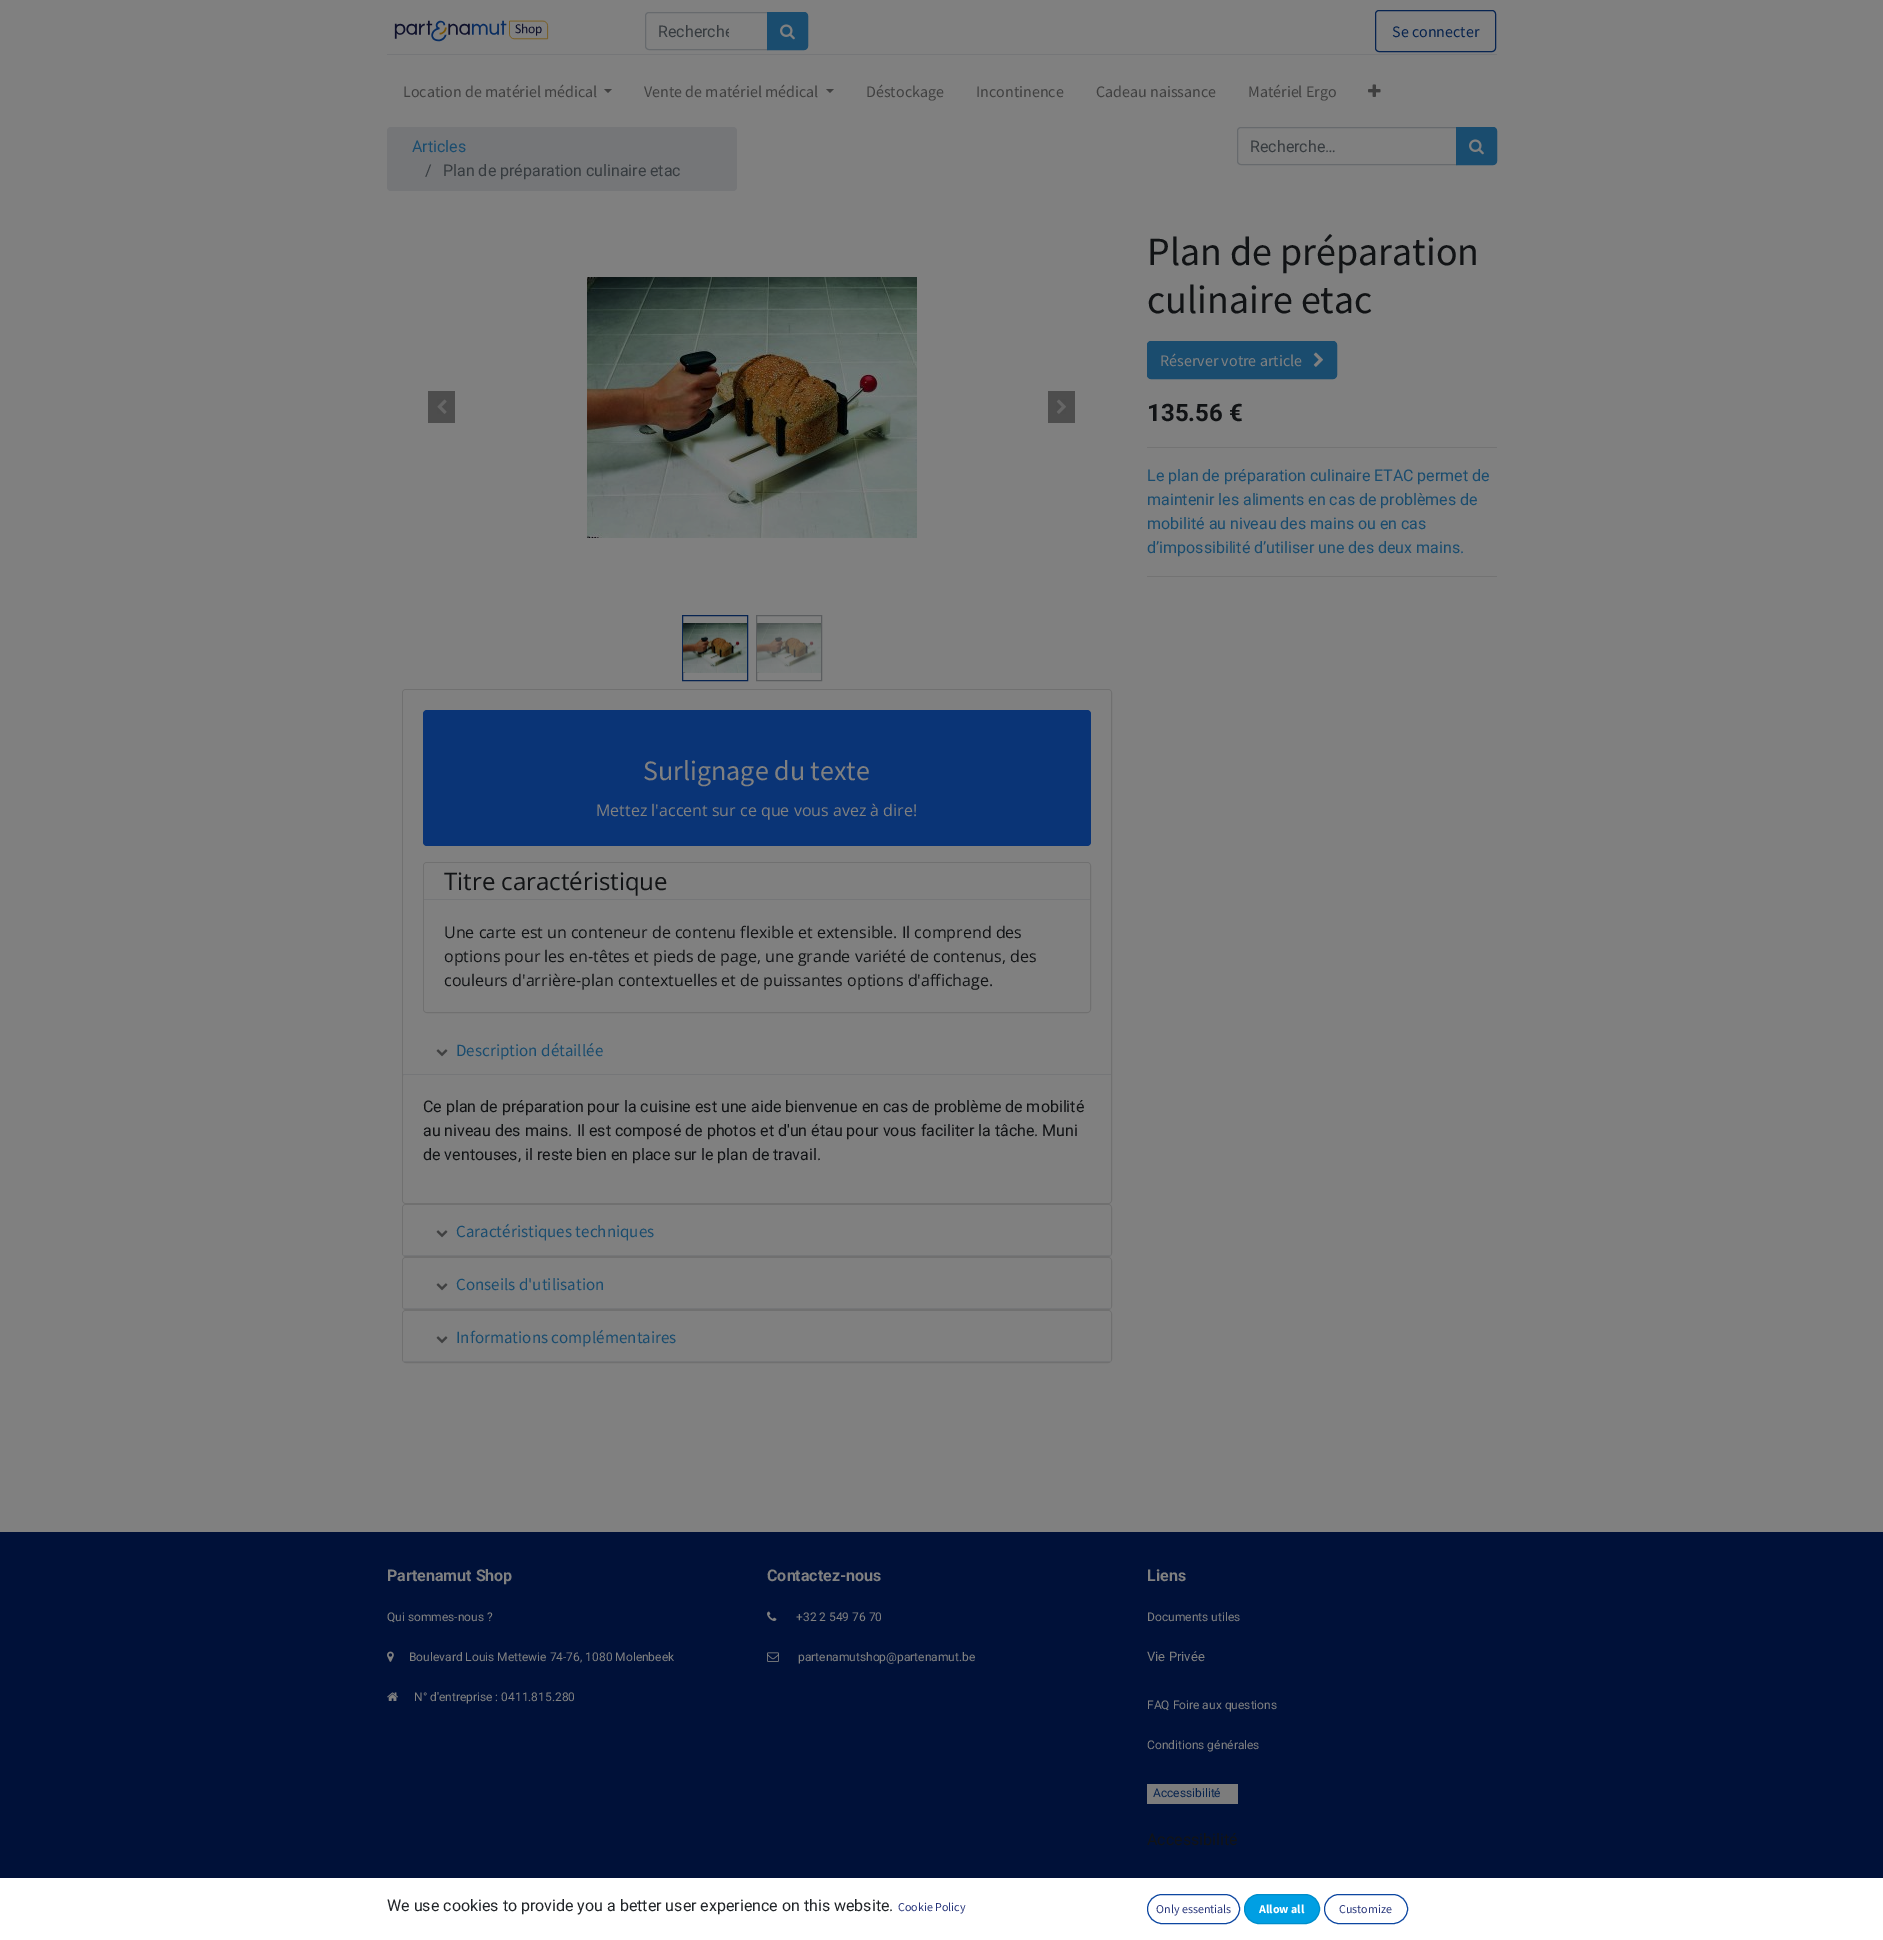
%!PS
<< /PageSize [1883 1940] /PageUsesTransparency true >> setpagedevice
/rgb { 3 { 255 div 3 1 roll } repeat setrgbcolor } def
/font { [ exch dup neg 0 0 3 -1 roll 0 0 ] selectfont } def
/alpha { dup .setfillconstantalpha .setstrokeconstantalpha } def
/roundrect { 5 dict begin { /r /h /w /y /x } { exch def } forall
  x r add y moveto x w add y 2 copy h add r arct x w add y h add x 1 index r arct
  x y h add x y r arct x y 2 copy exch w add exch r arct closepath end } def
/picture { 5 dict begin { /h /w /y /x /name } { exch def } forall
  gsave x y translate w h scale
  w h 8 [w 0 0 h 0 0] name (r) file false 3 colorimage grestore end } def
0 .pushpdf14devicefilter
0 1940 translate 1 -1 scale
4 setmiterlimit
128 128 128 rgb
0 0 1883 1940 rectfill
(img/1.rgb) 394 20 155 22 picture
103 106 109 rgb
649 12.5 moveto 767.5 12.5 lineto 767.5 49.5 lineto 649 49.5 lineto 647 49.5 645.5 48 645.5 46 curveto 645.5 16 lineto 645.5 14 647 12.5 649 12.5 curveto closepath stroke
26 76 110 rgb
767.5 12.5 moveto 804 12.5 lineto 806 12.5 807.5 14 807.5 16 curveto 807.5 46 lineto 807.5 48 806 49.5 804 49.5 curveto 767.5 49.5 lineto closepath gsave fill grestore
stroke
(img/2.rgb) 780 24 15 16 picture
7 36 81 rgb
1375.5 10.5 120 41 3.5 roundrect stroke
117 118 120 rgb
387 54 1110 1 rectfill
64 64 64 rgb
604 89 moveto 612 89 lineto 608 93 lineto closepath fill
826 89 moveto 834 89 lineto 830 93 lineto closepath fill
(img/3.rgb) 1368 84 13 13 picture
117 118 120 rgb
387 127 350 64 4 roundrect fill
103 106 109 rgb
1241 127.5 moveto 1456.5 127.5 lineto 1456.5 164.5 lineto 1241 164.5 lineto 1239 164.5 1237.5 163 1237.5 161 curveto 1237.5 131 lineto 1237.5 129 1239 127.5 1241 127.5 curveto closepath stroke
26 76 110 rgb
1456.5 127.5 moveto 1493 127.5 lineto 1495 127.5 1496.5 129 1496.5 131 curveto 1496.5 161 lineto 1496.5 163 1495 164.5 1493 164.5 curveto 1456.5 164.5 lineto closepath gsave fill grestore
stroke
(img/2.rgb) 1469 139 15 16 picture
77 77 77 rgb
428 391 27 32 rectfill
(img/4.rgb) 437 399 10 15 picture
(img/5.rgb) 587 277 330 261 picture
1048 391 27 32 rectfill
(img/6.rgb) 1056 399 10 15 picture
7 36 81 rgb
682.5 615.5 65 65 rectstroke
(img/7.rgb) 683 623 64 50 picture
91 93 95 rgb
756.5 615.5 65 65 rectstroke
(img/8.rgb) 757 623 64 50 picture
26 76 110 rgb
1147.5 341.5 189 37 3.5 roundrect gsave fill grestore
stroke
(img/9.rgb) 1313 352 10 15 picture
115 115 115 rgb
1147 447 350 1 rectfill
1147 576 350 1 rectfill
112 112 112 rgb
402.5 689.5 709 514 3.5 roundrect stroke
128 128 128 rgb
406 690 moveto 1108 690 lineto 1109.5 690 1111 691.5 1111 693 curveto 1111 1075 lineto 403 1075 lineto 403 693 lineto 403 691.5 404.5 690 406 690 curveto closepath fill
117 118 120 rgb
403 1074 708 1 rectfill
10 52 118 rgb
423 710 668 136 4 roundrect fill
112 112 112 rgb
423.5 862.5 667 150 3.5 roundrect stroke
128 128 128 rgb
427 863 moveto 1087 863 lineto 1088.5 863 1090 864.5 1090 866 curveto 1090 900 lineto 424 900 lineto 424 866 lineto 424 864.5 425.5 863 427 863 curveto closepath fill
117 118 120 rgb
424 899 666 1 rectfill
0.9 alpha
128 128 128 rgb
424 900 moveto 1090 900 lineto 1090 1009 lineto 1090 1010.5 1088.5 1012 1087 1012 curveto 427 1012 lineto 425.5 1012 424 1010.5 424 1009 curveto closepath fill
1 alpha
(img/10.rgb) 436 1049 12 8 picture
0.9 alpha
403 1075 708 128 3 roundrect fill
1 alpha
112 112 112 rgb
402.5 1204.5 709 52 3.5 roundrect stroke
128 128 128 rgb
403 1205 708 51 3 roundrect fill
gsave
403 1205 708 51 3 roundrect clip newpath
117 118 120 rgb
403 1255 708 1 rectfill
grestore
(img/10.rgb) 436 1230 12 8 picture
112 112 112 rgb
402.5 1257.5 709 52 3.5 roundrect stroke
128 128 128 rgb
403 1258 708 51 3 roundrect fill
gsave
403 1258 708 51 3 roundrect clip newpath
117 118 120 rgb
403 1308 708 1 rectfill
grestore
(img/10.rgb) 436 1283 12 8 picture
112 112 112 rgb
402.5 1310.5 709 52 3.5 roundrect stroke
128 128 128 rgb
403 1311 708 51 3 roundrect fill
gsave
403 1311 708 51 3 roundrect clip newpath
117 118 120 rgb
403 1361 708 1 rectfill
grestore
(img/10.rgb) 436 1336 12 8 picture
0 17 57 rgb
0 1532 1883 346 rectfill
(img/11.rgb) 387 1651 7 11 picture
(img/12.rgb) 387 1692 11 9 picture
(img/13.rgb) 767 1611 10 10 picture
(img/14.rgb) 767 1652 12 10 picture
124 124 124 rgb
1147 1784 91 20 rectfill
255 255 255 rgb
0 1878 1883 62 rectfill
13 71 161 rgb
1147.5 1894.5 92 29 14.5 roundrect stroke
0 159 227 rgb
1244.5 1894.5 75 29 14.5 roundrect gsave fill grestore
0 141 202 rgb
stroke
13 71 161 rgb
1324.5 1894.5 83 29 14.5 roundrect stroke
gsave
658 22 71 19 rectclip
/Roboto-Regular 16 font
54 59 63 rgb
658 37 moveto (Recherche) show
grestore
/SourceSansPro-Regular 16 font
7 35 78 rgb
1392 37 moveto (Se connecter) show
64 64 64 rgb
[
  [(Location de matériel médical) 403 97]
  [(Vente de matériel médical) 644 97]
  [(Déstockage) 866 97]
  [(Incontinence) 976 97]
  [(Cadeau naissance) 1096 97]
  [(Matériel Ergo) 1248 97]
] { aload pop moveto show } forall
/Roboto-Regular 16 font
26 76 110 rgb
412 152 moveto (Articles) show
54 59 63 rgb
[
  [(/) 425 176]
  [(Plan de préparation culinaire etac) 443 176]
  [(Recherche…) 1250 152]
] { aload pop moveto show } forall
/SourceSansPro-Regular 40 font
17 19 21 rgb
1147 265 moveto (Plan de préparation) show
1147 313 moveto (culinaire etac) show
/SourceSansPro-Regular 16 font
128 128 128 rgb
1160 366 moveto (Réserver votre article) show
/Roboto-Bold 24 font
17 19 21 rgb
1147 421 moveto (135.56 €) show
/Roboto-Regular 16 font
26 76 110 rgb
[
  [(Le plan de préparation culinaire ETAC permet de) 1147 481]
  [(maintenir les aliments en cas de problèmes de) 1147 505]
  [(mobilité au niveau des mains ou en cas) 1147 529]
  [(d’impossibilité d’utiliser une des deux mains.) 1147 553]
] { aload pop moveto show } forall
/SourceSansPro-Regular 28 font
128 128 128 rgb
643 780 moveto (Surlignage du texte) show
/OpenSans-Regular 16 font
596 816 moveto (Mettez l'accent sur ce que vous avez à dire!) show
/OpenSans-Regular 24 font
17 19 21 rgb
444 890 moveto (Titre caractéristique) show
/OpenSans-Regular 16 font
[
  [(Une carte est un conteneur de contenu flexible et extensible. Il comprend des) 444 938]
  [(options pour les en-têtes et pieds de page, une grande variété de contenus, des) 444 962]
  [(couleurs d'arrière-plan contextuelles et de puissantes options d'affichage.) 444 986]
] { aload pop moveto show } forall
/SourceSansPro-Regular 17 font
26 76 110 rgb
456 1056 moveto (Description détaillée) show
/Roboto-Regular 16 font
17 19 21 rgb
[
  [(Ce plan de préparation pour la cuisine est une aide bienvenue en cas de problème de mobilité) 423 1112]
  [(au niveau des mains. Il est composé de photos et d'un étau pour vous faciliter la tâche. Muni) 423 1136]
  [(de ventouses, il reste bien en place sur le plan de travail.) 423 1160]
] { aload pop moveto show } forall
/SourceSansPro-Regular 17 font
26 76 110 rgb
[
  [(Caractéristiques techniques) 456 1237]
  [(Conseils d'utilisation) 456 1290]
  [(Informations complémentaires) 456 1343]
] { aload pop moveto show } forall
/Roboto-Bold 16 font
128 128 128 rgb
387 1581 moveto (Partenamut Shop) show
/Roboto-Regular 12 font
[
  [(Qui sommes-nous ?) 387 1621]
  [(Boulevard Louis Mettewie 74-76, 1080 Molenbeek) 409 1661]
  [(N° d'entreprise : 0411.815.280) 414 1701]
] { aload pop moveto show } forall
/Roboto-Bold 16 font
767 1581 moveto (Contactez-nous) show
/Roboto-Regular 12 font
796 1621 moveto (+32 2 549 76 70) show
798 1661 moveto (partenamutshop@partenamut.be) show
/Roboto-Bold 16 font
1147 1581 moveto (Liens) show
/Roboto-Regular 12 font
1147 1621 moveto (Documents utiles) show
/Roboto-Regular 13 font
1147 1661 moveto (Vie Privée) show
/Roboto-Regular 12 font
1147 1709 moveto (FAQ Foire aux questions) show
1147 1749 moveto (Conditions générales) show
7 35 78 rgb
1153 1797 moveto (Accessibilité) show
/Roboto-Regular 16 font
17 19 21 rgb
1147 1845 moveto (Accessibilité) show
33 37 41 rgb
387 1911 moveto (We use cookies to provide you a better user experience on this website.) show
/SourceSansPro-Regular 12 font
40 54 123 rgb
898 1911 moveto (Cookie Policy) show
1156 1913 moveto (Only essentials) show
/SourceSansPro-Bold 12 font
255 255 255 rgb
1259 1913 moveto (Allow all) show
/SourceSansPro-Regular 12 font
40 54 123 rgb
1339 1913 moveto (Customize) show
.poppdf14devicefilter showpage
